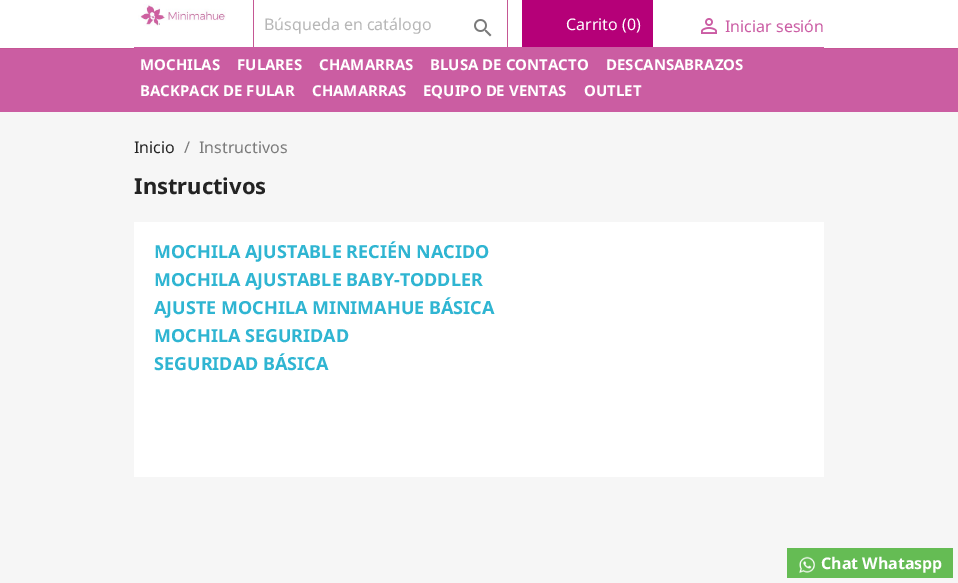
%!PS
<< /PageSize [958 583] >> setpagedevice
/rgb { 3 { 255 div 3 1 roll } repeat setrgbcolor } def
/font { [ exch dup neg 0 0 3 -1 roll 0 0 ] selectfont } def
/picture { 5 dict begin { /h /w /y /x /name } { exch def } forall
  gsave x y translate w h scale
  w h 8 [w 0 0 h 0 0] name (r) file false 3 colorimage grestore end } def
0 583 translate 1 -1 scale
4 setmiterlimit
255 255 255 rgb
0 0 958 583 rectfill
197 87 148 rgb
0 48 958 1 rectfill
(img/1.rgb) 138 4 88 22 picture
508 -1 moveto 508 48 lineto 507 48 lineto 507 0 lineto closepath fill
253 48 moveto 253 -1 lineto 254 0 lineto 254 48 lineto closepath fill
(img/2.rgb) 474 19 18 18 picture
181 0 120 rgb
522 0 131 47 rectfill
(img/3.rgb) 701 18 16 16 picture
[
  [0 49 958 63 203 93 162]
  [134 47 690 2 203 93 162]
  [0 112 958 471 246 246 246]
  [134 222 690 255 255 255 255]
  [787 548 166 30 101 188 84]
] { aload pop rgb rectfill } forall
(img/4.rgb) 799 556 16 18 picture
/NotoSans-Regular 16 font
183 183 183 rgb
264 30 moveto (Búsqueda en catálogo) show
255 255 255 rgb
566 30 moveto (Carrito \(0\)) show
203 93 164 rgb
725 32 moveto (Iniciar sesión) show
/NotoSans-Bold 15 font
255 255 255 rgb
[
  [(MOCHILAS) 140 70]
  [(FULARES) 237 70]
  [(CHAMARRAS) 319 70]
  [(BLUSA DE CONTACTO) 430 70]
  [(DESCANSABRAZOS) 606 70]
  [(BACKPACK DE FULAR) 140 96]
  [(CHAMARRAS) 312 96]
  [(EQUIPO DE VENTAS) 423 96]
  [(OUTLET) 584 96]
] { aload pop moveto show } forall
/NotoSans-Regular 16 font
35 35 35 rgb
134 153 moveto (Inicio) show
122 122 122 rgb
184 153 moveto (/) show
199 153 moveto (Instructivos) show
/NotoSans-Bold 22 font
35 35 35 rgb
134 194 moveto (Instructivos) show
/NotoSans-Bold 18 font
47 181 210 rgb
[
  [(MOCHILA AJUSTABLE RECIÉN NACIDO) 154 258]
  [(MOCHILA AJUSTABLE BABY-TODDLER) 154 286]
  [(AJUSTE MOCHILA MINIMAHUE BÁSICA) 154 314]
  [(MOCHILA SEGURIDAD) 154 342]
  [(SEGURIDAD BÁSICA) 154 370]
] { aload pop moveto show } forall
/NotoSans-Bold 16 font
255 255 255 rgb
821 569 moveto (Chat Whataspp) show
showpage
